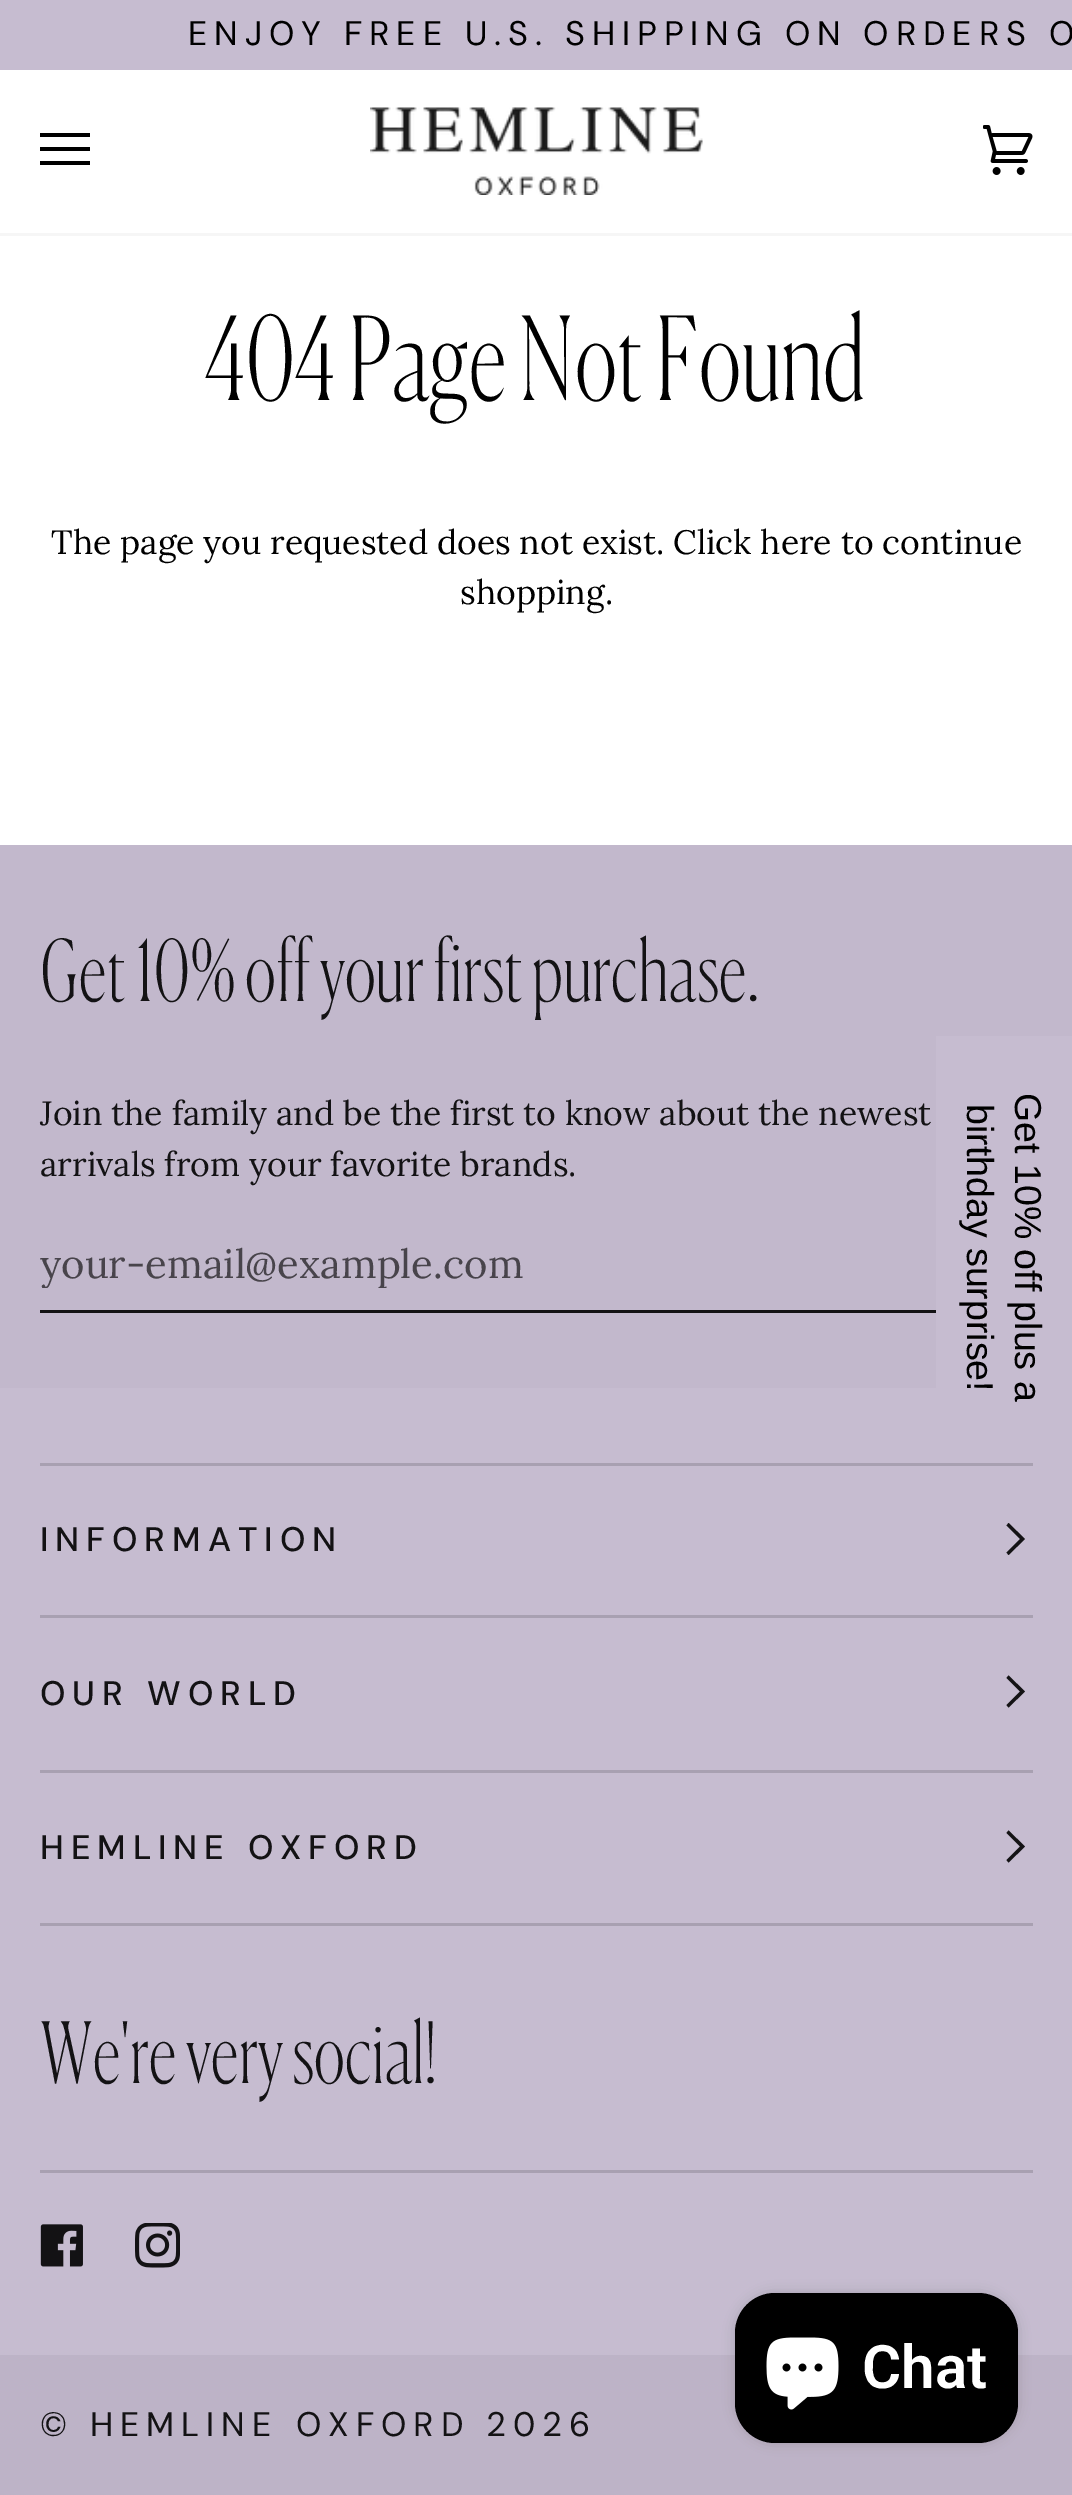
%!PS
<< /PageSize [1072 2495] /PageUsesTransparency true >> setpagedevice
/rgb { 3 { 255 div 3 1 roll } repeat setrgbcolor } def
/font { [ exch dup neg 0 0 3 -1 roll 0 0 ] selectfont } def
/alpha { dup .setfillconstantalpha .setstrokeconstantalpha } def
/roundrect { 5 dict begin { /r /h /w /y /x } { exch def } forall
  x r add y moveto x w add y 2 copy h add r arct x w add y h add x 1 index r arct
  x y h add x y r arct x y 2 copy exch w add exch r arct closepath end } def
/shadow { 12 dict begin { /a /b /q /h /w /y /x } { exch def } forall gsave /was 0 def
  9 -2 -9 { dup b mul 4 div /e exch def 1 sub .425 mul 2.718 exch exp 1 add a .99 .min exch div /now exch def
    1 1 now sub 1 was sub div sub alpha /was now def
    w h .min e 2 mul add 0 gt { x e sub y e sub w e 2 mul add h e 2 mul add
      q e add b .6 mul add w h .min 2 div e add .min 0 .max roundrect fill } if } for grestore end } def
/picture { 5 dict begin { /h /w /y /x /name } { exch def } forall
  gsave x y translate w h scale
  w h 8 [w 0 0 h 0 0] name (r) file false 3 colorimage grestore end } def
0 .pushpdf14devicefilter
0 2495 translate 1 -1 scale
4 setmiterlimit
255 255 255 rgb
0 0 1072 2495 rectfill
198 188 208 rgb
0 0 1072 70 rectfill
246 246 246 rgb
0 233 1072 3 rectfill
0 0 0 rgb
40 133 moveto 90 133 lineto 90 137 lineto 40 137 lineto closepath 40 147 moveto 90 147 lineto 90 151 lineto 40 151 lineto closepath 40 161 moveto 90 161 lineto 90 165 lineto 40 165 lineto closepath fill
(img/1.rgb) 370 107 333 88 picture
(img/2.rgb) 983 125 50 50 picture
[
  [0 1388 1072 967 198 188 208]
  [0 845 1072 543 194 184 204]
  [40 1310 896 3 19 18 20]
  [40 1463 993 3 168 160 177]
  [40 1615 993 3 168 160 177]
] { aload pop rgb rectfill } forall
20 19 21 rgb
1020 1539 moveto 1006.5 1525.5 lineto 1008.5 1523 lineto 1025 1539 lineto 1008.5 1555 lineto 1006.5 1552.5 lineto closepath eofill
168 160 177 rgb
40 1770 993 3 rectfill
20 19 21 rgb
1020 1691.5 moveto 1006.5 1678 lineto 1008.5 1675.5 lineto 1025 1691.5 lineto 1008.5 1707.5 lineto 1006.5 1705 lineto closepath eofill
168 160 177 rgb
40 1923 993 3 rectfill
20 19 21 rgb
1020 1846.5 moveto 1006.5 1833 lineto 1008.5 1830.5 lineto 1025 1846.5 lineto 1008.5 1862.5 lineto 1006.5 1860 lineto closepath eofill
168 160 177 rgb
40 2170 993 3 rectfill
(img/3.rgb) 40 2224 43 43 picture
(img/4.rgb) 135 2223 45 45 picture
198 188 208 rgb
936 1036 136 352 rectfill
189 179 199 rgb
0 2355 1072 140 rectfill
0 0 0 rgb
735 2293 283 150 40 6 0.15 shadow
735 2293 283 150 40 roundrect fill
(img/5.rgb) 766 2337 73 73 picture
/DMSans-Regular 34.1 font
188 45 moveto 6.85 0 (ENJOY FREE U.S. SHIPPING ON ORDERS O) ashow
/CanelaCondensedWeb-Thin 115.5 font
205 400 moveto (404 Page Not Found) show
/Lora-Regular 33.75 font
51 554 moveto (The page you requested does not exist. Click here to continue) show
460 604 moveto (shopping.) show
/CanelaCondensedWeb-Thin 84.4 font
19 18 20 rgb
40 1001 moveto (Get 10% off your first purchase.) show
/Lora-Regular 33.75 font
40 1125 moveto (Join the family and be the first to know about the newest) show
40 1176 moveto (arrivals from your favorite brands.) show
gsave
40 1238 835 50 rectclip
/Lora-Regular 40 font
72 68 75 rgb
40 1278 moveto (your-email@example.com) show
grestore
/DMSans-Medium 34.1 font
40 1551 moveto 6.85 0 (INFORMATION) ashow
40 1705 moveto 2 0 32 6.85 0 (OUR WORLD) awidthshow
40 1859 moveto 1 0 32 6.85 0 (HEMLINE OXFORD) awidthshow
/CanelaCondensedWeb-Thin 84.4 font
40 2083 moveto (We're very social!) show
/LiberationSans-Regular 37.5 font
0 0 0 rgb
gsave 967 1104 translate 90 rotate 0 0 moveto (birthday surprise!) show grestore
gsave 1015 1093 translate 90 rotate 0 0 moveto (Get 10% off plus a) show grestore
/Roboto-SemiBold 60 font
255 255 255 rgb
862 2388 moveto (Chat) show
/DMSans-Regular 34.1 font
19 18 20 rgb
40 2436 moveto 6.85 0 (©) ashow
90 2436 moveto 2 0 32 6.85 0 (HEMLINE OXFORD) awidthshow
486 2436 moveto 6.85 0 (2026) ashow
.poppdf14devicefilter showpage
